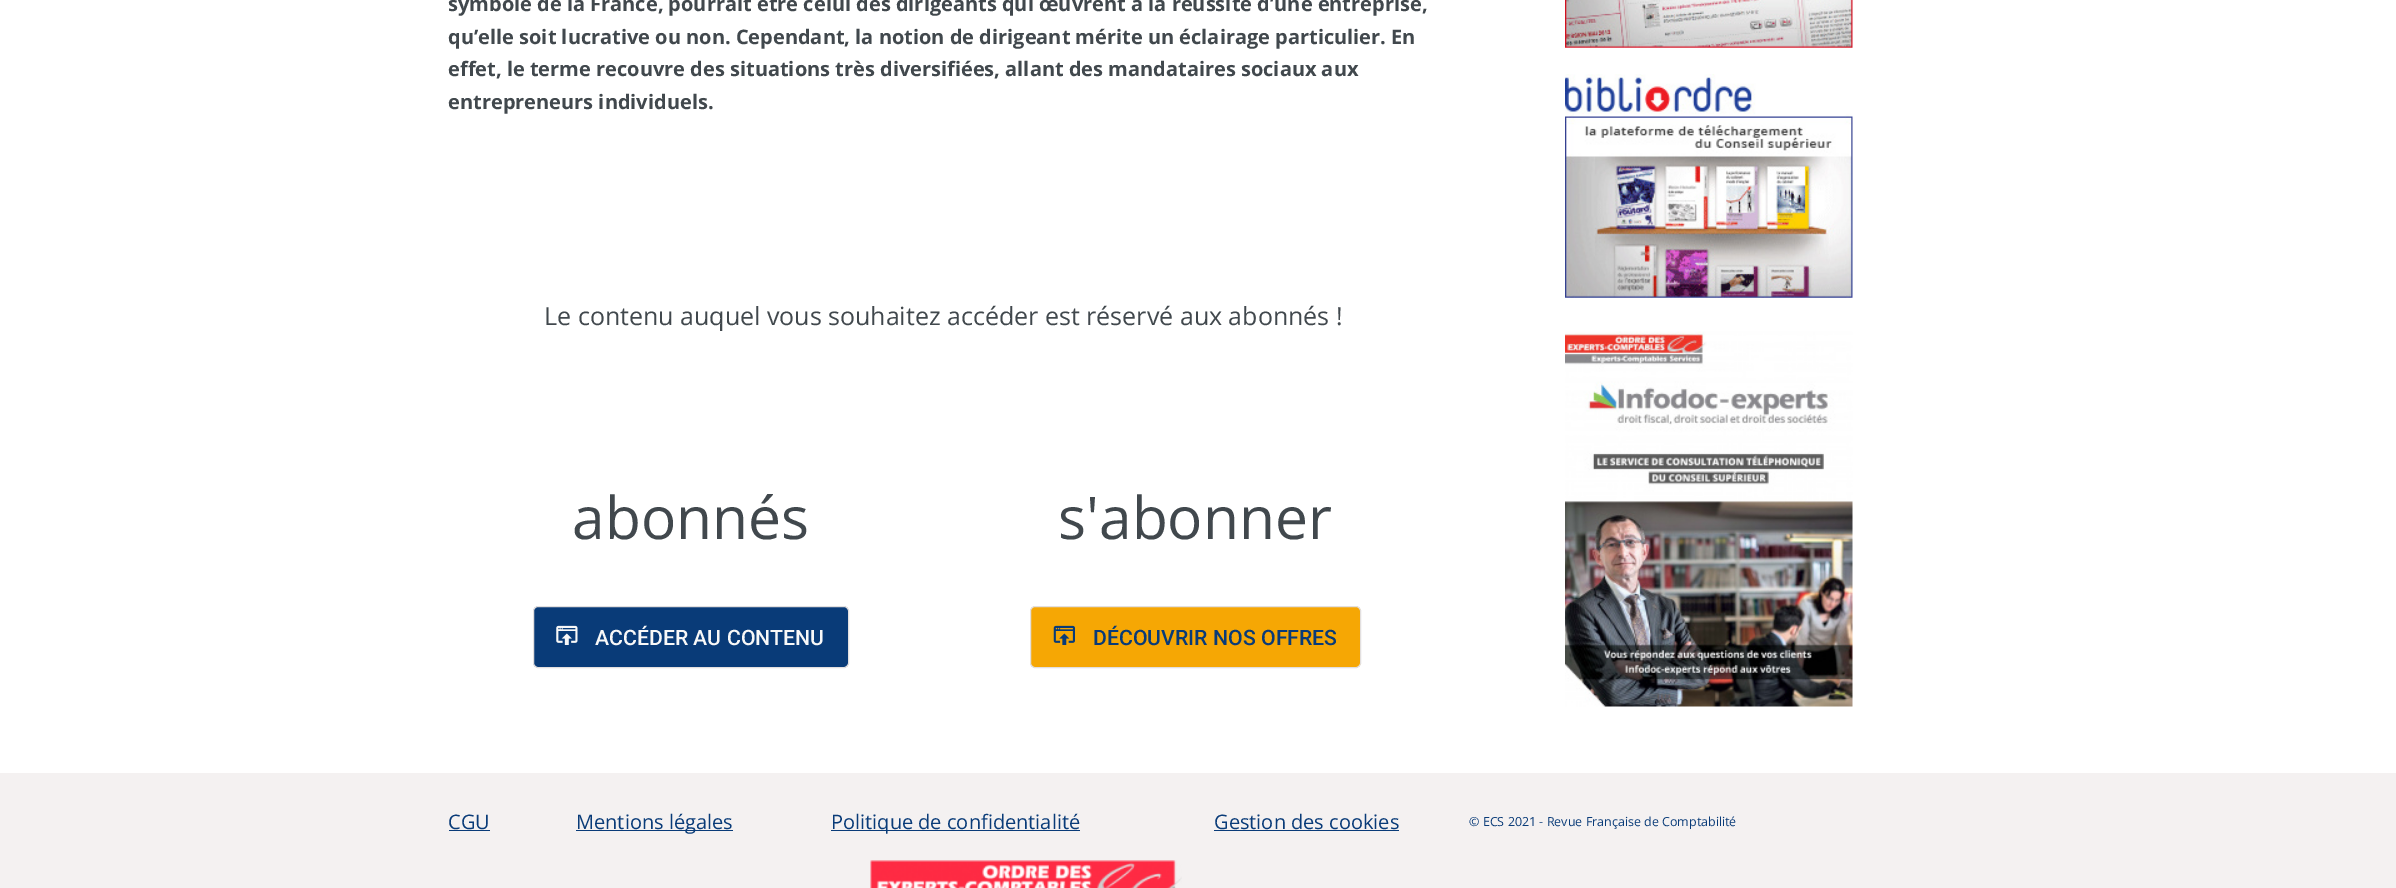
%!PS
<< /PageSize [2396 888] >> setpagedevice
/rgb { 3 { 255 div 3 1 roll } repeat setrgbcolor } def
/font { [ exch dup neg 0 0 3 -1 roll 0 0 ] selectfont } def
/roundrect { 5 dict begin { /r /h /w /y /x } { exch def } forall
  x r add y moveto x w add y 2 copy h add r arct x w add y h add x 1 index r arct
  x y h add x y r arct x y 2 copy exch w add exch r arct closepath end } def
/picture { 5 dict begin { /h /w /y /x /name } { exch def } forall
  gsave x y translate w h scale
  w h 8 [w 0 0 h 0 0] name (r) file false 3 colorimage grestore end } def
0 888 translate 1 -1 scale
4 setmiterlimit
255 255 255 rgb
0 0 2396 888 rectfill
9 59 120 rgb
533.5 606.5 315 61 4.5 roundrect gsave fill grestore
226 223 223 rgb
stroke
(img/1.rgb) 556 625 22 20 picture
246 167 4 rgb
1030.5 606.5 330 61 4.5 roundrect gsave fill grestore
226 223 223 rgb
stroke
(img/2.rgb) 1053 625 22 20 picture
(img/3.rgb) 1565 0 288 48 picture
(img/4.rgb) 1565 74 288 224 picture
(img/5.rgb) 1565 331 288 376 picture
[
  [0 773 2396 115 244 241 241]
  [449 830 41 1 9 59 120]
  [576 830 157 1 9 59 120]
  [831 830 249 1 9 59 120]
  [1214 830 185 1 9 59 120]
] { aload pop rgb rectfill } forall
(img/6.rgb) 870 860 312 28 picture
/OpenSans-Bold 20 font
65 72 77 rgb
[
  [(symbole de la France, pourrait être celui des dirigeants qui œuvrent à la réussite d’une entreprise,) 448 11]
  [(qu’elle soit lucrative ou non. Cependant, la notion de dirigeant mérite un éclairage particulier. En) 448 44]
  [(effet, le terme recouvre des situations très diversifiées, allant des mandataires sociaux aux) 448 76]
  [(entrepreneurs individuels.) 448 109]
] { aload pop moveto show } forall
/OpenSans-Regular 25 font
544 325 moveto (Le contenu auquel vous souhaitez accéder est réservé aux abonnés !) show
/OpenSans-Regular 58.75 font
572 539 moveto (abonnés) show
/Roboto-Medium 21.25 font
248 248 248 rgb
595 645 moveto (ACCÉDER AU CONTENU) show
/OpenSans-Regular 58.75 font
65 72 77 rgb
1058 539 moveto (s'abonner) show
/Roboto-Medium 21.25 font
9 59 120 rgb
1093 645 moveto (DÉCOUVRIR NOS OFFRES) show
/OpenSans-Regular 20 font
[
  [(CGU) 448 829]
  [(Mentions légales) 576 829]
  [(Politique de confidentialité) 831 829]
  [(Gestion des cookies) 1214 829]
] { aload pop moveto show } forall
/OpenSans-Regular 12.5 font
1469 826 moveto (© ECS 2021 - Revue Française de Comptabilité) show
showpage
